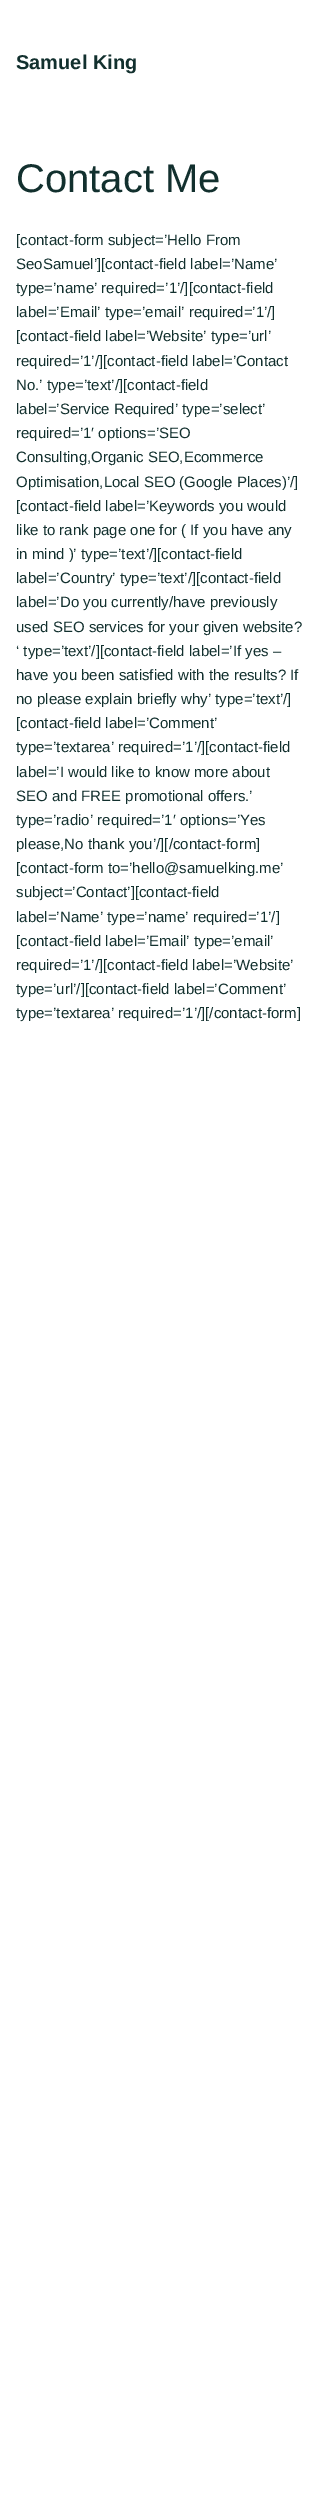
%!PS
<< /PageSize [319 2514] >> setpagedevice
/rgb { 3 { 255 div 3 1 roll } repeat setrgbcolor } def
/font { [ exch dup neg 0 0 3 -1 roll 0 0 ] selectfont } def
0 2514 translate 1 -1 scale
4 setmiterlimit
255 255 255 rgb
0 0 319 2514 rectfill
/LiberationSans-Bold 20 font
18 48 46 rgb
16 69 moveto (Samuel King) show
/LiberationSans-Regular 40 font
16 192 moveto (Contact Me) show
/LiberationSans-Regular 15 font
[
  [([contact-form subject=’Hello From) 16 245]
  [(SeoSamuel’][contact-field label=’Name’) 16 269]
  [(type=’name’ required=’1’/][contact-field) 16 293]
  [(label=’Email’ type=’email’ required=’1’/]) 16 317]
  [([contact-field label=’Website’ type=’url’) 16 341]
  [(required=’1’/][contact-field label=’Contact) 16 366]
  [(No.’ type=’text’/][contact-field) 16 390]
  [(label=’Service Required’ type=’select’) 16 414]
  [(required=’1′ options=’SEO) 16 438]
  [(Consulting,Organic SEO,Ecommerce) 16 462]
  [(Optimisation,Local SEO \(Google Places\)’/]) 16 487]
  [([contact-field label=’Keywords you would) 16 511]
  [(like to rank page one for \( If you have any) 16 535]
  [(in mind \)’ type=’text’/][contact-field) 16 559]
  [(label=’Country’ type=’text’/][contact-field) 16 583]
  [(label=’Do you currently/have previously) 16 607]
  [(used SEO services for your given website?) 16 632]
  [(‘ type=’text’/][contact-field label=’If yes –) 16 656]
  [(have you been satisfied with the results? If) 16 680]
  [(no please explain briefly why’ type=’text’/]) 16 704]
  [([contact-field label=’Comment’) 16 728]
  [(type=’textarea’ required=’1’/][contact-field) 16 752]
  [(label=’I would like to know more about) 16 777]
  [(SEO and FREE promotional offers.’) 16 801]
  [(type=’radio’ required=’1′ options=’Yes) 16 825]
  [(please,No thank you’/][/contact-form]) 16 849]
  [([contact-form to=’hello@samuelking.me’) 16 873]
  [(subject=’Contact’][contact-field) 16 897]
  [(label=’Name’ type=’name’ required=’1’/]) 16 922]
  [([contact-field label=’Email’ type=’email’) 16 946]
  [(required=’1’/][contact-field label=’Website’) 16 970]
  [(type=’url’/][contact-field label=’Comment’) 16 994]
  [(type=’textarea’ required=’1’/][/contact-form]) 16 1018]
] { aload pop moveto show } forall
showpage
